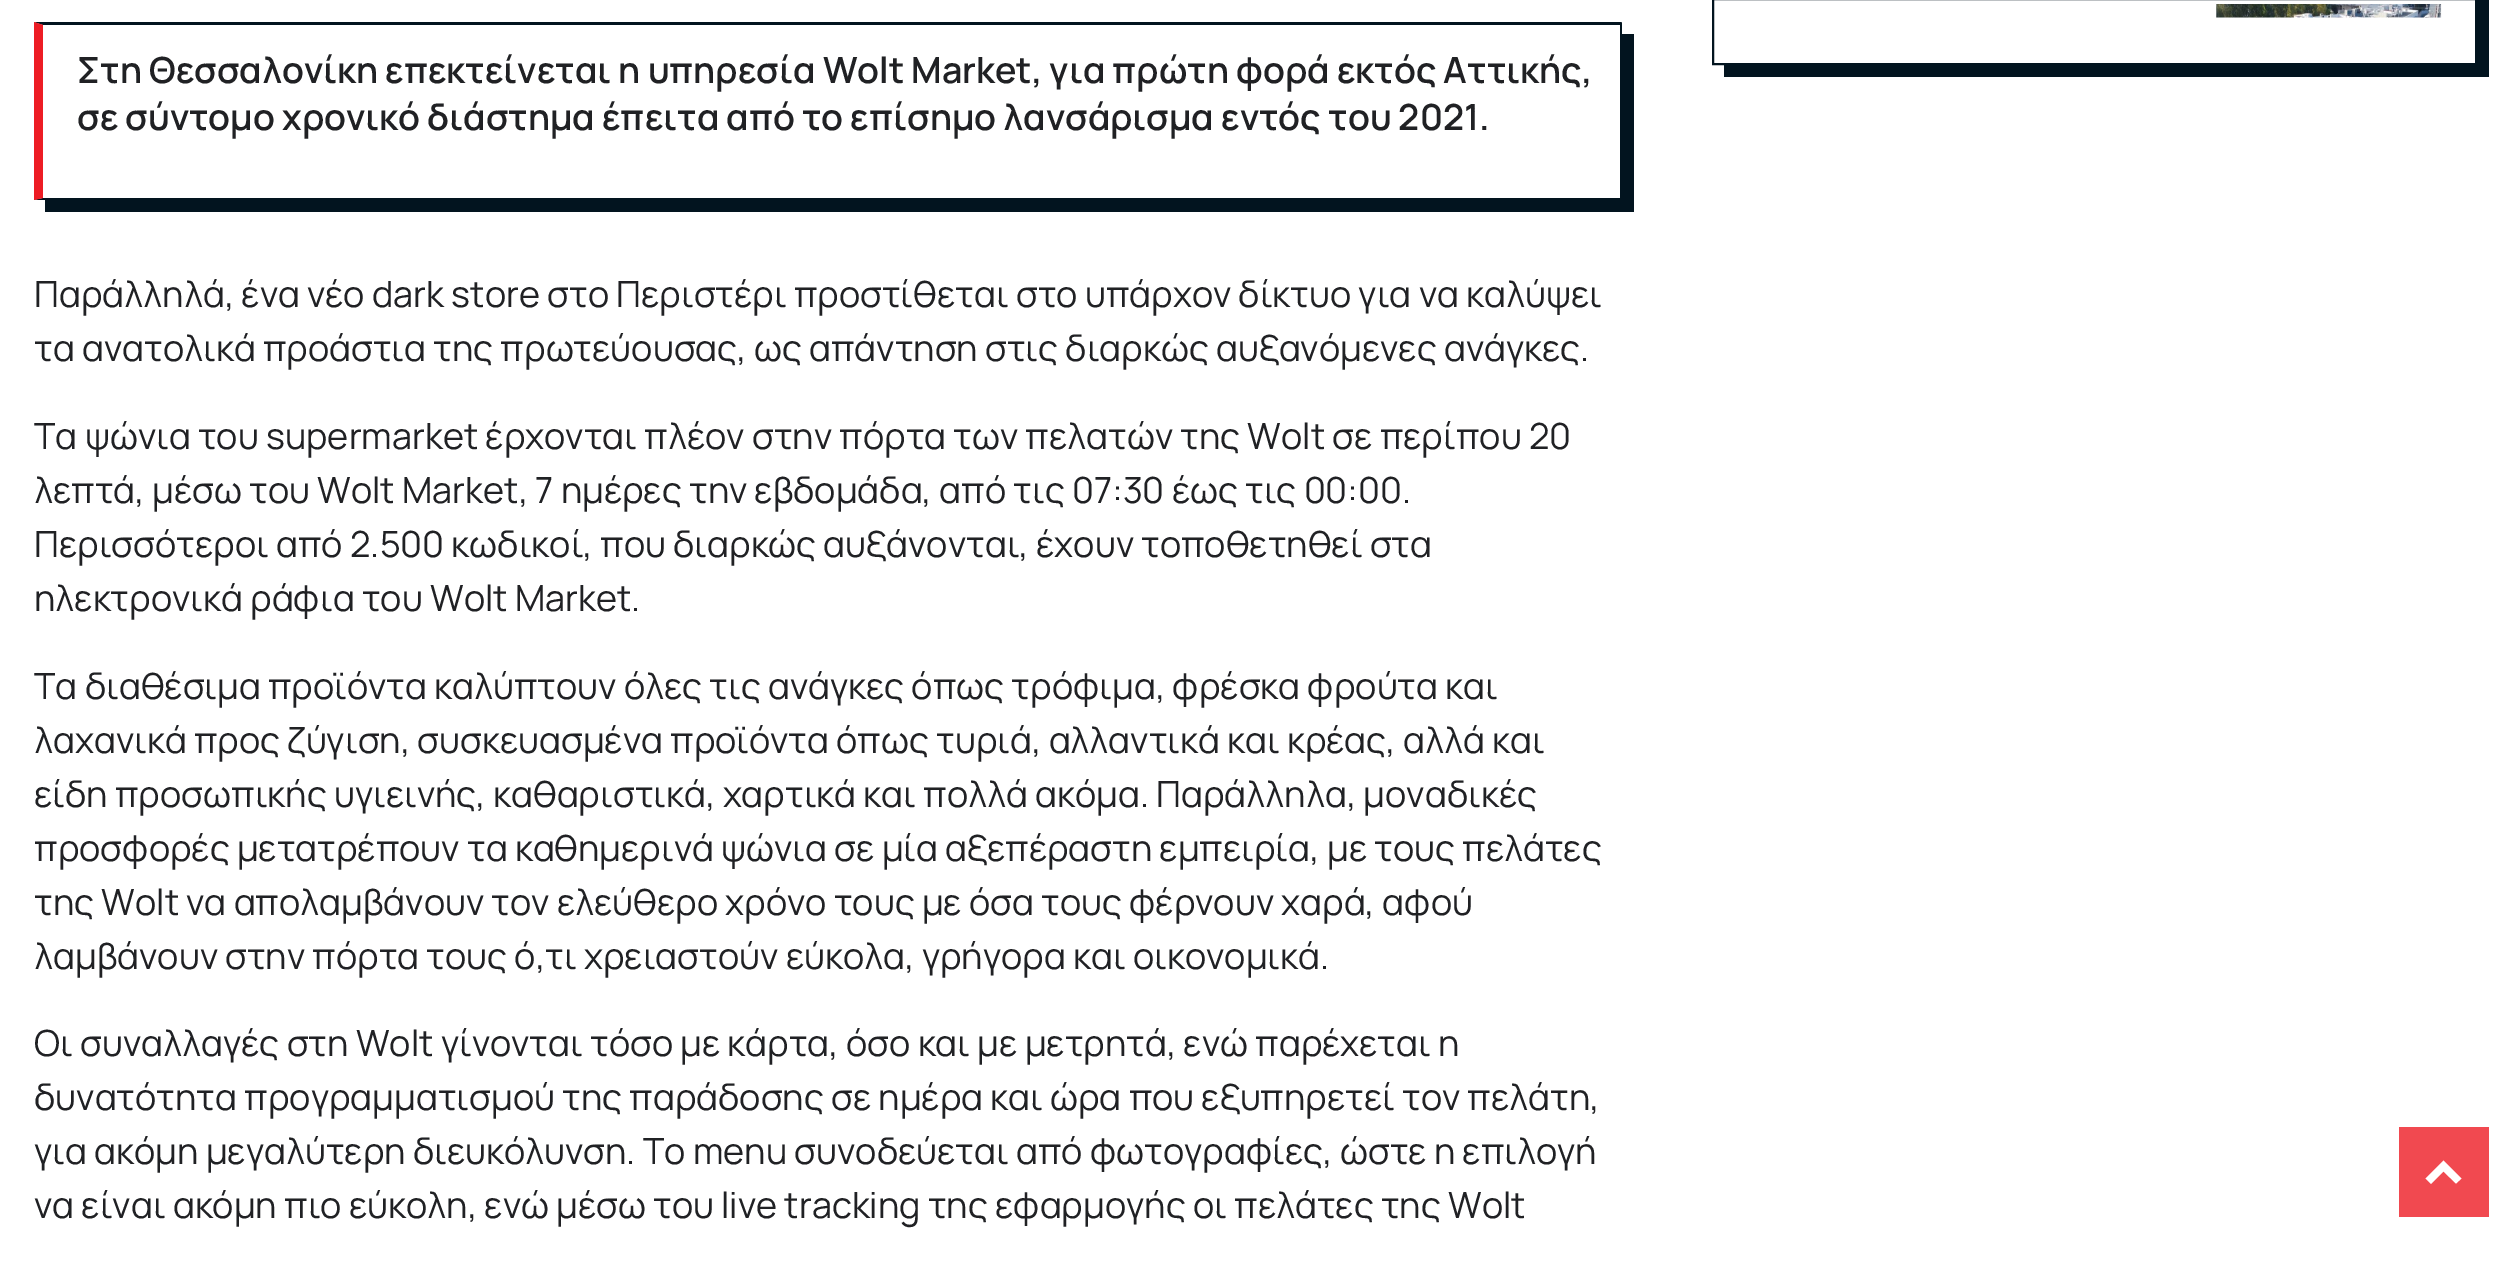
%!PS
<< /PageSize [2510 1262] /PageUsesTransparency true >> setpagedevice
/rgb { 3 { 255 div 3 1 roll } repeat setrgbcolor } def
/font { [ exch dup neg 0 0 3 -1 roll 0 0 ] selectfont } def
/alpha { dup .setfillconstantalpha .setstrokeconstantalpha } def
/picture { 5 dict begin { /h /w /y /x /name } { exch def } forall
  gsave x y translate w h scale
  w h 8 [w 0 0 h 0 0] name (r) file false 3 colorimage grestore end } def
0 .pushpdf14devicefilter
0 1262 translate 1 -1 scale
4 setmiterlimit
255 255 255 rgb
0 0 2510 1262 rectfill
2 20 31 rgb
1724 65 moveto 1724 77 lineto 2489 77 lineto 2489 -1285 lineto 2477 -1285 lineto 2477 65 lineto closepath fill
2 setlinewidth
1713 -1 763 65 rectstroke
(img/1.rgb) 2216 4 226 14 picture
45 200 moveto 45 212 lineto 1634 212 lineto 1634 34 lineto 1622 34 lineto 1622 200 lineto closepath fill
34 22 moveto 1622 22 lineto 1620 25 lineto 43 25 lineto closepath fill
1620 23 2 177 rectfill
1622 200 moveto 34 200 lineto 43 198 lineto 1620 198 lineto closepath fill
237 28 36 rgb
34 200 moveto 34 22 lineto 43 25 lineto 43 198 lineto closepath fill
0.8 alpha
2399 1127 90 90 rectfill
1 alpha
255 255 255 rgb
2443.5 1160.5 moveto 2461.5 1178.5 lineto 2456 1183.5 lineto 2443.5 1171.5 lineto 2431 1184 lineto 2425.5 1178.5 lineto closepath fill
/Manrope-SemiBold 36 font
32 33 36 rgb
77 83 moveto (Στη Θεσσαλονίκη επεκτείνεται η υπηρεσία Wolt Market, για πρώτη φορά εκτός Αττικής,) show
77 130 moveto (σε σύντομο χρονικό διάστημα έπειτα από το επίσημο λανσάρισμα εντός του 2021.) show
/Manrope-Regular 36 font
[
  [(Παράλληλά, ένα νέο dark store στο Περιστέρι προστίθεται στο υπάρχον δίκτυο για να καλύψει) 34 307]
  [(τα ανατολικά προάστια της πρωτεύουσας, ως απάντηση στις διαρκώς αυξανόμενες ανάγκες.) 34 361]
  [(Τα ψώνια του supermarket έρχονται πλέον στην πόρτα των πελατών της Wolt σε περίπου 20) 34 449]
  [(λεπτά, μέσω του Wolt Market, 7 ημέρες την εβδομάδα, από τις 07:30 έως τις 00:00.) 34 503]
  [(Περισσότεροι από 2.500 κωδικοί, που διαρκώς αυξάνονται, έχουν τοποθετηθεί στα) 34 557]
  [(ηλεκτρονικά ράφια του Wolt Market.) 34 611]
  [(Τα διαθέσιμα προϊόντα καλύπτουν όλες τις ανάγκες όπως τρόφιμα, φρέσκα φρούτα και) 34 699]
  [(λαχανικά προς ζύγιση, συσκευασμένα προϊόντα όπως τυριά, αλλαντικά και κρέας, αλλά και) 34 753]
  [(είδη προσωπικής υγιεινής, καθαριστικά, χαρτικά και πολλά ακόμα. Παράλληλα, μοναδικές) 34 807]
  [(προσφορές μετατρέπουν τα καθημερινά ψώνια σε μία αξεπέραστη εμπειρία, με τους πελάτες) 34 861]
  [(της Wolt να απολαμβάνουν τον ελεύθερο χρόνο τους με όσα τους φέρνουν χαρά, αφού) 34 915]
  [(λαμβάνουν στην πόρτα τους ό,τι χρειαστούν εύκολα, γρήγορα και οικονομικά.) 34 969]
  [(Οι συναλλαγές στη Wolt γίνονται τόσο με κάρτα, όσο και με μετρητά, ενώ παρέχεται η) 34 1056]
  [(δυνατότητα προγραμματισμού της παράδοσης σε ημέρα και ώρα που εξυπηρετεί τον πελάτη,) 34 1110]
  [(για ακόμη μεγαλύτερη διευκόλυνση. Το menu συνοδεύεται από φωτογραφίες, ώστε η επιλογή) 34 1164]
  [(να είναι ακόμη πιο εύκολη, ενώ μέσω του live tracking της εφαρμογής οι πελάτες της Wolt) 34 1218]
] { aload pop moveto show } forall
.poppdf14devicefilter showpage
